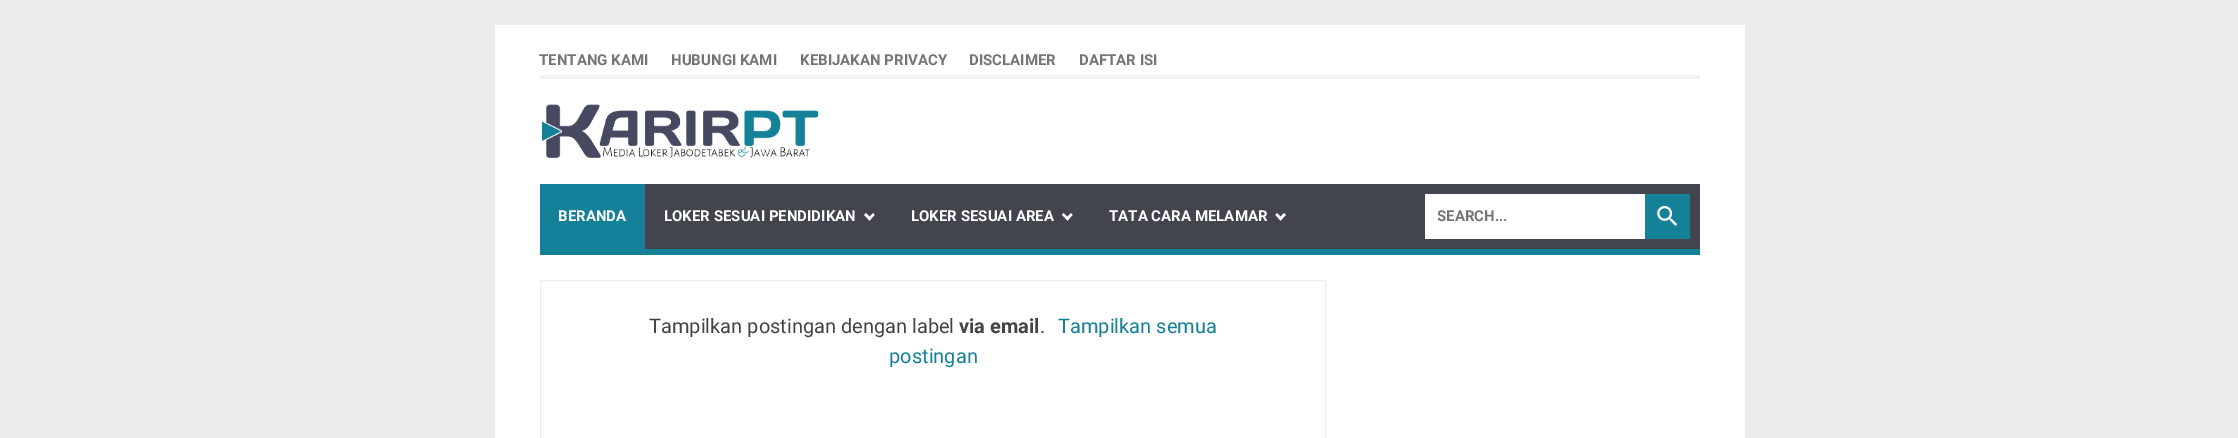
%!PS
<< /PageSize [2238 438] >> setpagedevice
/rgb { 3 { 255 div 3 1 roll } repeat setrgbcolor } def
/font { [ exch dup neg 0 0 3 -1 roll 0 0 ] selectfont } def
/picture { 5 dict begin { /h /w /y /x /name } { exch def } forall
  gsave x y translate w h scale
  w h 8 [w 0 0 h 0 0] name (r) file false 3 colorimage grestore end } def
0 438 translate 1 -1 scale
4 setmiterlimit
234 236 237 rgb
0 0 2238 438 rectfill
255 255 255 rgb
495 25 1250 413 rectfill
243 243 243 rgb
540 75 1160 4 rectfill
(img/1.rgb) 541 104 278 54 picture
66 69 78 rgb
645 184 1055 65 rectfill
20 129 153 rgb
540 184 105 65 rectfill
255 255 255 rgb
867.5 218.5 moveto 873 213 lineto 874.5 215 lineto 869.5 220.5 lineto closepath fill
864 215 moveto 866 213 lineto 871 218.5 lineto 869.5 220.5 lineto closepath fill
1065.5 218.5 moveto 1071 213 lineto 1072.5 215 lineto 1067.5 220.5 lineto closepath fill
1062 215 moveto 1063.5 213 lineto 1069 218.5 lineto 1067.5 220.5 lineto closepath fill
1279 218.5 moveto 1284 213 lineto 1286 215 lineto 1280.5 220.5 lineto closepath fill
1275.5 215 moveto 1277 213 lineto 1282.5 218.5 lineto 1280.5 220.5 lineto closepath fill
1425 194 220 45 rectfill
20 129 153 rgb
1645 194 45 45 rectfill
(img/2.rgb) 1657 205 21 21 picture
540 249 1160 6 rectfill
238 238 238 rgb
540.5 280.5 785 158 rectstroke
/Roboto-Bold 15 font
117 117 117 rgb
[
  [(TENTANG KAMI) 539 65]
  [(HUBUNGI KAMI) 671 65]
  [(KEBIJAKAN PRIVACY) 800 65]
  [(DISCLAIMER) 969 65]
  [(DAFTAR ISI) 1079 65]
] { aload pop moveto show } forall
255 255 255 rgb
[
  [(BERANDA) 558 221]
  [(LOKER SESUAI PENDIDIKAN) 664 221]
  [(LOKER SESUAI AREA) 911 221]
  [(TATA CARA MELAMAR) 1109 221]
] { aload pop moveto show } forall
gsave
1438 194 195 45 rectclip
117 117 117 rgb
1437 221 moveto (SEARCH...) show
grestore
/Roboto-Regular 20 font
68 68 68 rgb
649 333 moveto (Tampilkan postingan dengan label) show
/Roboto-Bold 20 font
959 333 moveto (via email) show
/Roboto-Regular 20 font
1040 333 moveto (.) show
20 129 153 rgb
1058 333 moveto (Tampilkan semua) show
889 363 moveto (postingan) show
showpage
